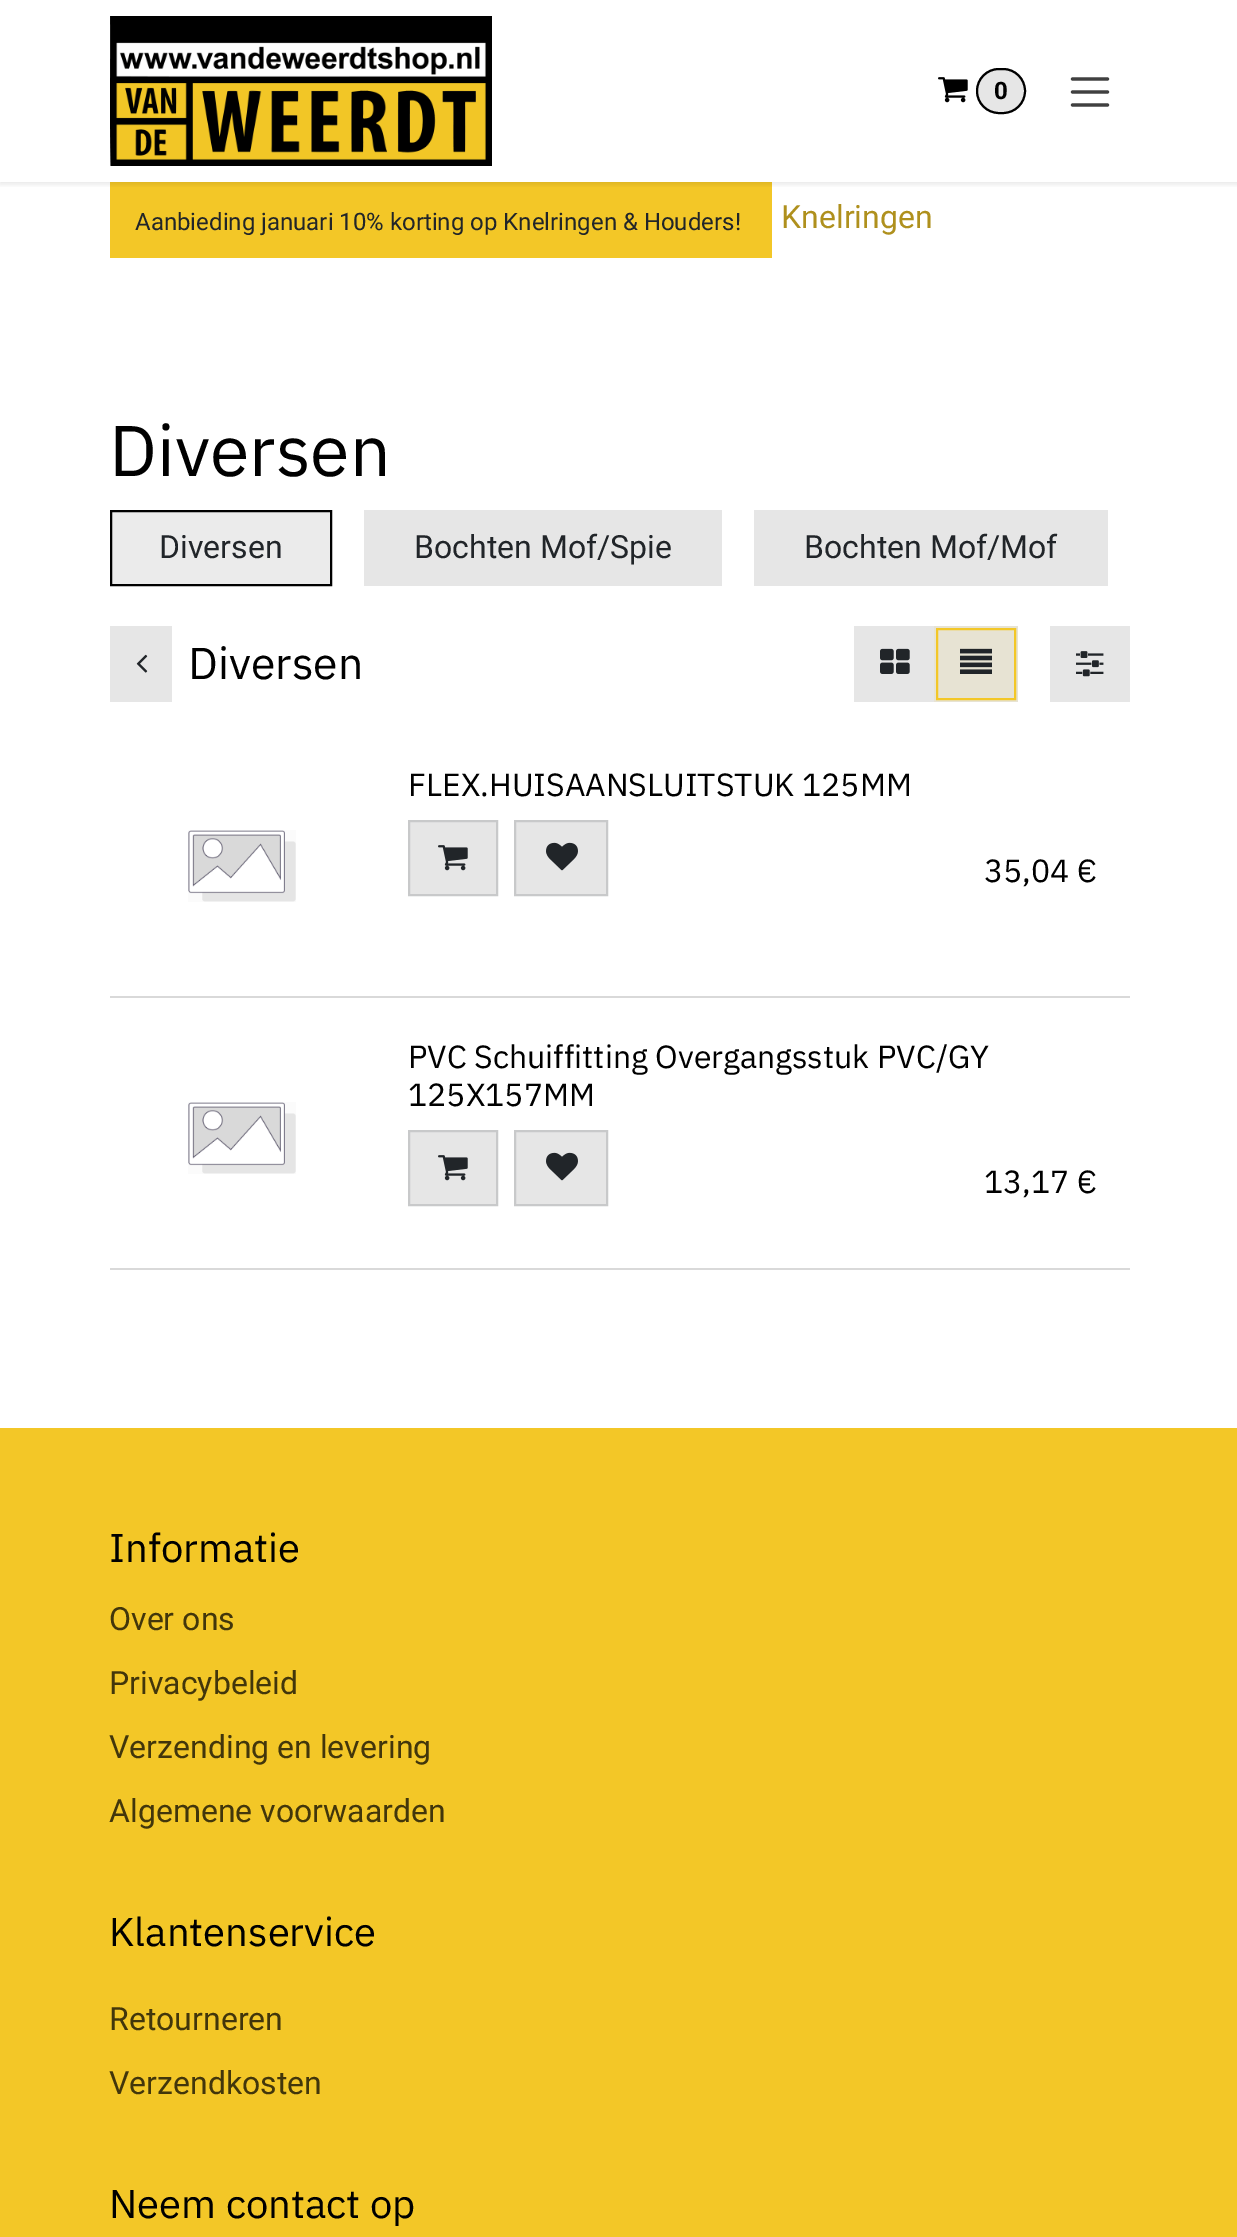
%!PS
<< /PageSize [1237 2237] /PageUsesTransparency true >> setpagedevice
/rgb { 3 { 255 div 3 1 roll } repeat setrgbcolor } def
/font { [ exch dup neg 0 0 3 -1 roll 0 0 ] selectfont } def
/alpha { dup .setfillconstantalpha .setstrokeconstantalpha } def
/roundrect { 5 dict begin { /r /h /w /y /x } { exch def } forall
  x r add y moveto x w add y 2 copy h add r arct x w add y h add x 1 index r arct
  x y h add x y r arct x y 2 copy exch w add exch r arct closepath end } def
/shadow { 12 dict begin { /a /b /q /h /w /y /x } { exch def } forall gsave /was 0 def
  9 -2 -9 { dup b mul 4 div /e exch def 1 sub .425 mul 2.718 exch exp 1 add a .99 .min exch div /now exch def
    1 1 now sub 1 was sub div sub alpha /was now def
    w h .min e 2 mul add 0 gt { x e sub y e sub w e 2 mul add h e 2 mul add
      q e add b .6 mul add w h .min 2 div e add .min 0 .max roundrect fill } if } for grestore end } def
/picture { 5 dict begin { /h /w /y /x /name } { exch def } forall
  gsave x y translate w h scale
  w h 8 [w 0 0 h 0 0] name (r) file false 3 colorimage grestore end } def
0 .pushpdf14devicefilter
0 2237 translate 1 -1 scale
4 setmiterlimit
255 255 255 rgb
0 0 1237 2237 rectfill
243 199 39 rgb
110 182 662 76 rectfill
gsave
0 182 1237 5 rectclip
0 0 0 rgb
0 2 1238 182 0 3 0.1 shadow
grestore
(img/1.rgb) 110 16 382 150 picture
(img/2.rgb) 938 77 30 26 picture
230 230 230 rgb
977 69 48 44 22 roundrect gsave fill grestore
0 0 0 rgb
2 setlinewidth
stroke
64 64 64 rgb
3.2 setlinewidth
1 setlinecap
1072.5 79 moveto 1107.5 79 lineto 1072.5 92 moveto 1107.5 92 lineto 1072.5 105 moveto 1107.5 105 lineto stroke
235 235 235 rgb
111 511 moveto 331 511 lineto 331 585 lineto 111 585 lineto closepath gsave fill grestore
0 0 0 rgb
2 setlinewidth
0 setlinecap
stroke
[
  [364 510 358 76 230 230 230]
  [754 510 354 76 230 230 230]
  [110 626 62 76 230 230 230]
] { aload pop rgb rectfill } forall
(img/3.rgb) 136 654 12 19 picture
854 626 80 76 rectfill
(img/4.rgb) 880 648 30 26 picture
231 227 211 rgb
934 626 84 76 rectfill
243 199 39 rgb
937 629 78 70 rectstroke
(img/5.rgb) 960 648 32 26 picture
230 230 230 rgb
1050 626 80 76 rectfill
(img/6.rgb) 1076 651 28 26 picture
217 217 217 rgb
110 996 1020 2 rectfill
(img/7.rgb) 188 830 108 72 picture
230 230 230 rgb
409 821 moveto 497 821 lineto 497 895 lineto 409 895 lineto closepath gsave fill grestore
200 201 202 rgb
stroke
(img/8.rgb) 438 845 30 26 picture
230 230 230 rgb
515 821 moveto 607 821 lineto 607 895 lineto 515 895 lineto closepath gsave fill grestore
200 201 202 rgb
stroke
(img/9.rgb) 546 842 32 29 picture
217 217 217 rgb
110 1268 1020 2 rectfill
(img/10.rgb) 188 1102 108 72 picture
230 230 230 rgb
409 1131 moveto 497 1131 lineto 497 1205 lineto 409 1205 lineto closepath gsave fill grestore
200 201 202 rgb
stroke
(img/8.rgb) 438 1155 30 26 picture
230 230 230 rgb
515 1131 moveto 607 1131 lineto 607 1205 lineto 515 1205 lineto closepath gsave fill grestore
200 201 202 rgb
stroke
(img/9.rgb) 546 1152 32 29 picture
243 199 39 rgb
0 1428 1237 809 rectfill
/Roboto-Bold 24 font
0 0 0 rgb
994 99 moveto (0) show
/Roboto-Regular 24 font
33 37 41 rgb
135 230 moveto (Aanbieding januari 10% korting op Knelringen & Houders!) show
/Roboto-Regular 32 font
175 144 29 rgb
781 228 moveto (Knelringen) show
/IBMPlexSans-Regular 71.5 font
0 0 0 rgb
109 476 moveto (Diversen) show
/Roboto-Regular 32 font
33 37 41 rgb
[
  [(Diversen) 159 558]
  [(Bochten Mof/Spie) 414 558]
  [(Bochten Mof/Mof) 804 558]
] { aload pop moveto show } forall
/IBMPlexSans-Regular 44.5 font
0 0 0 rgb
188 679 moveto (Diversen) show
/IBMPlexSans-Regular 32 font
[
  [(FLEX.HUISAANSLUITSTUK 125MM) 408 796]
  [(35,04 €) 984 882]
  [(PVC Schuiffitting Overgangsstuk PVC/GY) 408 1068]
  [(125X157MM) 408 1106]
  [(13,17 €) 984 1193]
] { aload pop moveto show } forall
/IBMPlexSans-Regular 40 font
109 1562 moveto (Informatie) show
/Roboto-Regular 32 font
66 54 11 rgb
[
  [(Over ons) 109 1630]
  [(Privacybeleid) 109 1694]
  [(Verzending en levering) 109 1758]
  [(Algemene voorwaarden) 109 1822]
] { aload pop moveto show } forall
/IBMPlexSans-Regular 40 font
0 0 0 rgb
109 1946 moveto (Klantenservice) show
/Roboto-Regular 32 font
66 54 11 rgb
109 2030 moveto (Retourneren) show
109 2094 moveto (Verzendkosten) show
/IBMPlexSans-Regular 40 font
0 0 0 rgb
109 2218 moveto (Neem contact op) show
.poppdf14devicefilter showpage
